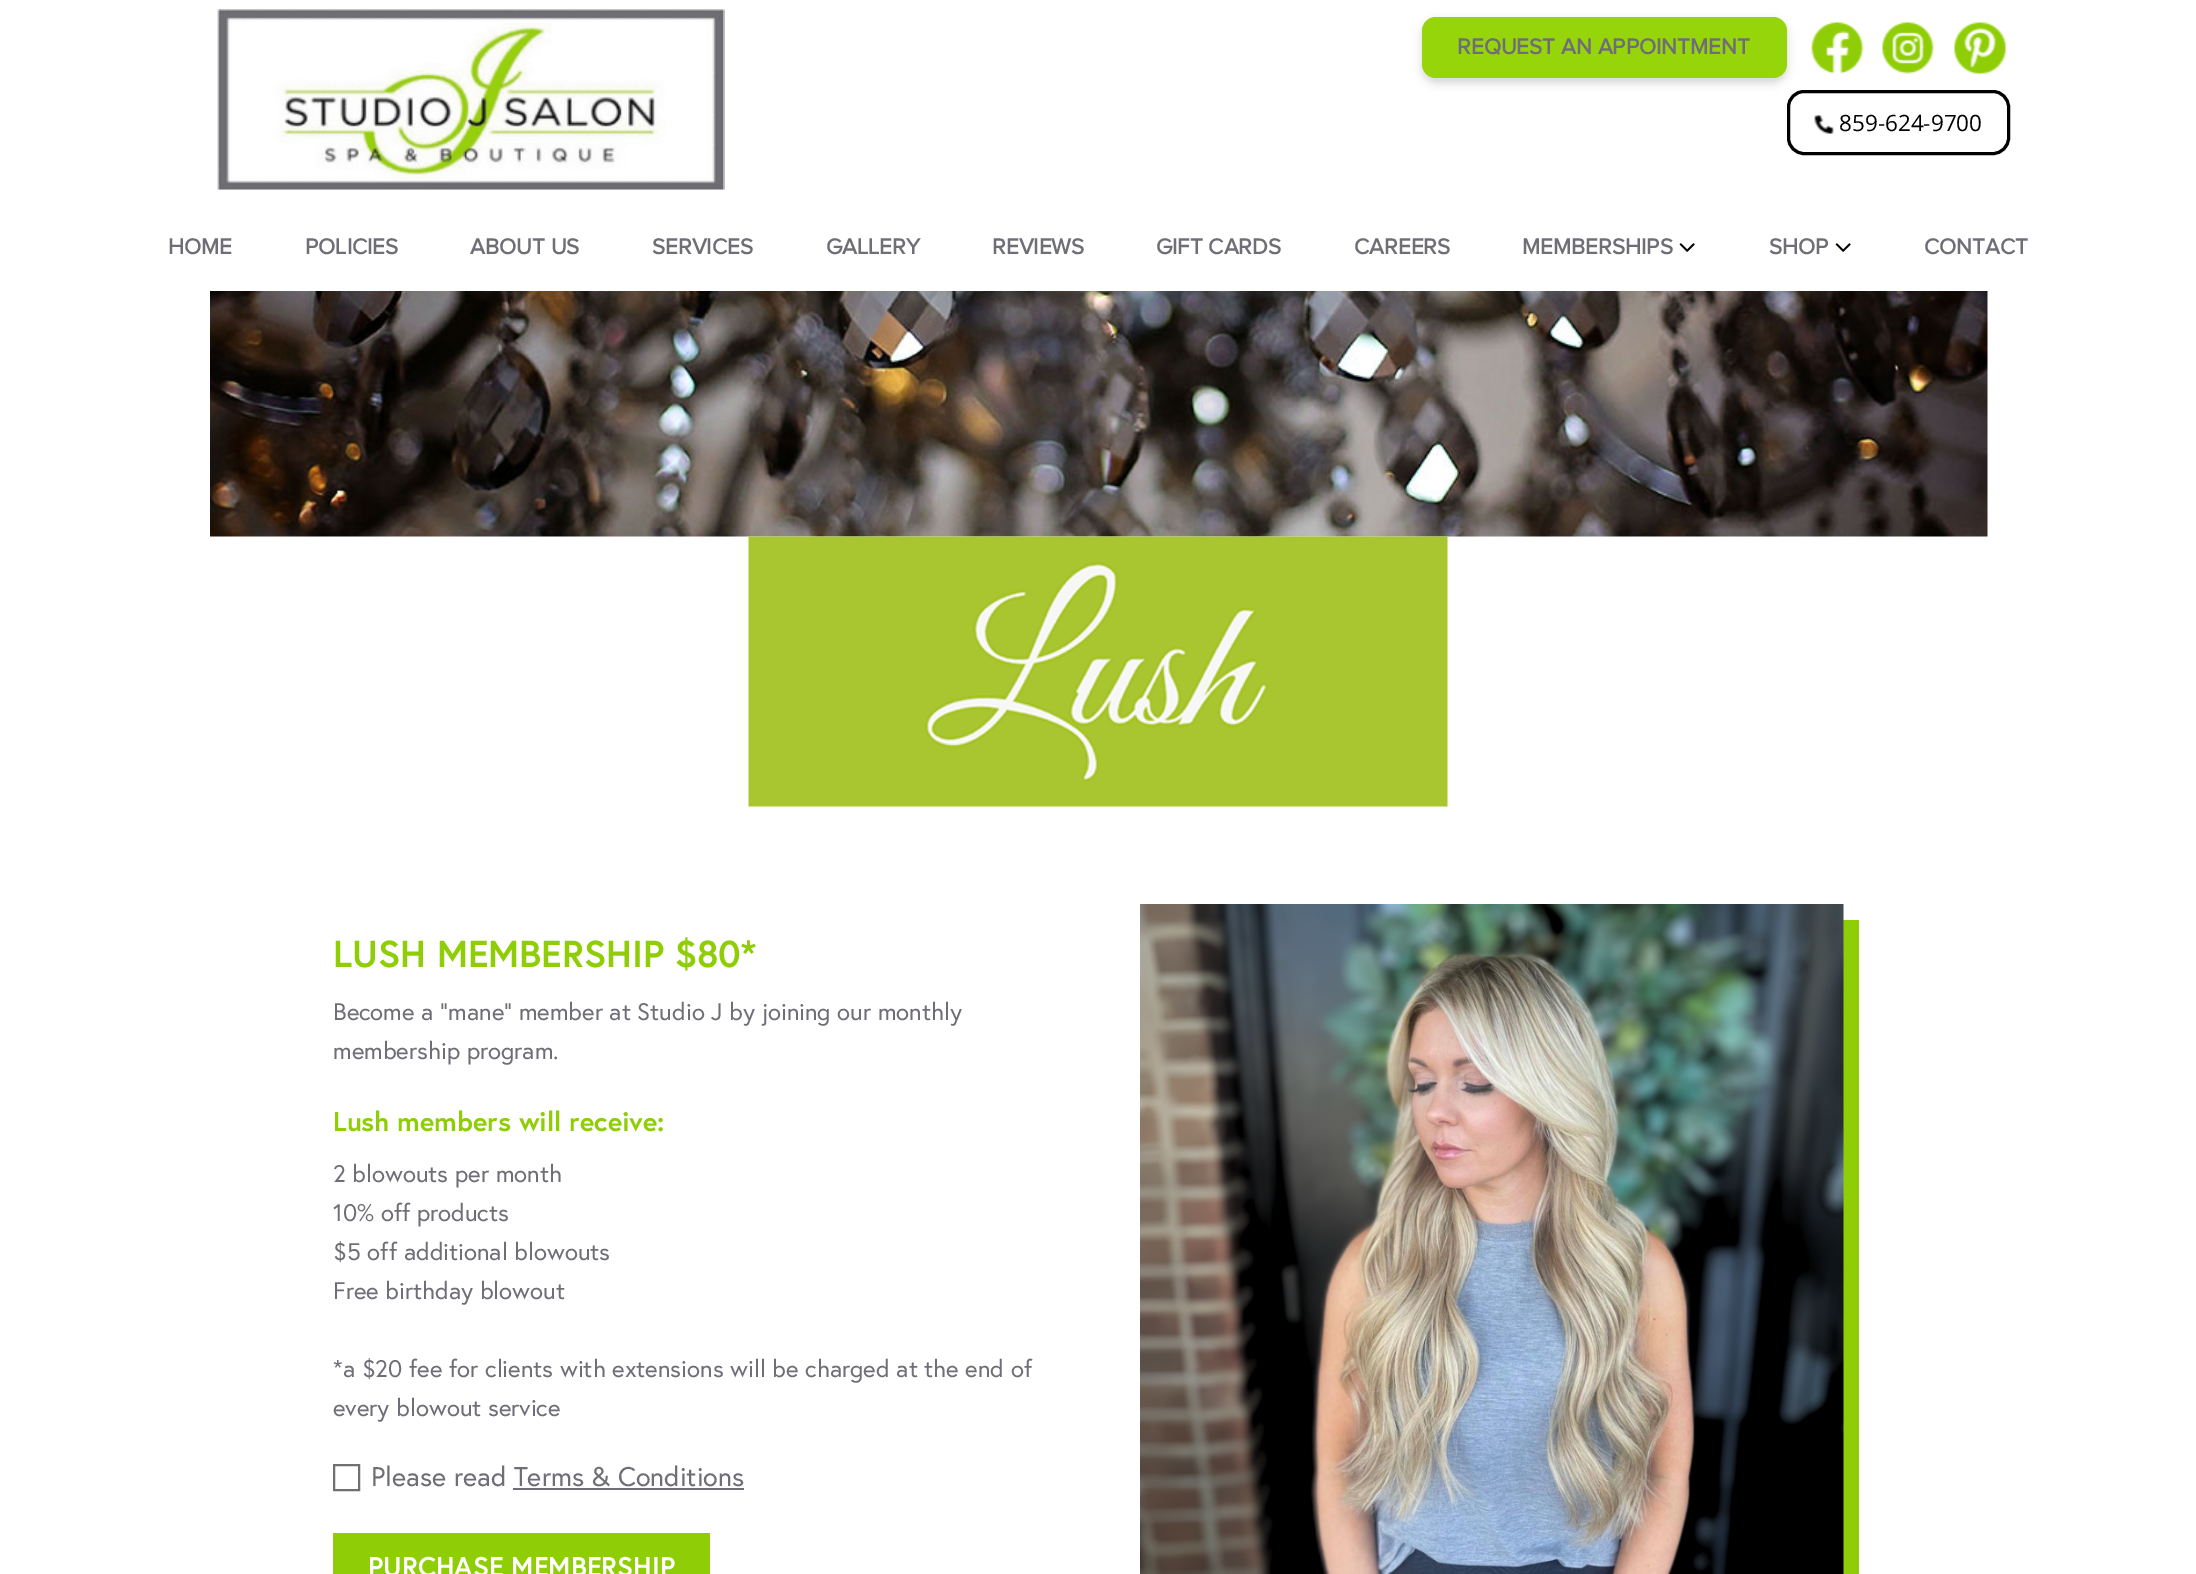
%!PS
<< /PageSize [2196 1574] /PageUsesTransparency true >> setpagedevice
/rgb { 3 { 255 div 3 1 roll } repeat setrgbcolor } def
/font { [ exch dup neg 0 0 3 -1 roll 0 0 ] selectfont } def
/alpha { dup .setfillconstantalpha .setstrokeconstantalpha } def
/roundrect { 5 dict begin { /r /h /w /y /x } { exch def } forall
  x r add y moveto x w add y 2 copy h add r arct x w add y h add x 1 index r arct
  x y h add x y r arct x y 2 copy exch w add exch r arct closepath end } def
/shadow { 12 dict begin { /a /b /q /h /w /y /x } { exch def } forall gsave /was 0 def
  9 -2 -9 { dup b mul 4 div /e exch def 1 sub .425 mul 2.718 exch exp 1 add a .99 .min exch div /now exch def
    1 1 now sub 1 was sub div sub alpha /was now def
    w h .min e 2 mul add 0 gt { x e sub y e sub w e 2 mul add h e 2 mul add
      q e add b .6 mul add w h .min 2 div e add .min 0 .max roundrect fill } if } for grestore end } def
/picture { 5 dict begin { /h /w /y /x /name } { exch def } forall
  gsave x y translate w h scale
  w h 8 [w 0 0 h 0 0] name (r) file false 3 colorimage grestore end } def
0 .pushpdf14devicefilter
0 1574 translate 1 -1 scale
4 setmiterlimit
255 255 255 rgb
0 0 2196 1574 rectfill
(img/1.rgb) 217 9 508 181 picture
0 0 0 rgb
1422 21 365 62 14 4.5 0.16 shadow
151 213 11 rgb
1422 17 365 61 14 roundrect fill
(img/2.rgb) 1811 22 53 52 picture
(img/3.rgb) 1882 22 52 52 picture
(img/4.rgb) 1954 22 52 52 picture
0 0 0 rgb
3 setlinewidth
1788.5 91.5 220 62 15.5 roundrect stroke
(img/5.rgb) 1814 115 20 19 picture
(img/6.rgb) 1679 243 16 9 picture
(img/6.rgb) 1835 243 16 9 picture
(img/7.rgb) 210 291 1778 246 picture
(img/8.rgb) 748 536 700 271 picture
112 112 112 rgb
2 setlinewidth
334 1465 25 25 rectstroke
[
  [513 1488 231 2 111 110 118]
  [333 1533 377 41 143 206 6]
  [1843 920 16 654 143 206 6]
] { aload pop rgb rectfill } forall
(img/9.rgb) 1140 904 704 670 picture
/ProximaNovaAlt-Bold 22.5 font
111 110 118 rgb
1457 54 moveto (REQUEST AN APPOINTMENT) show
/OpenSans-Regular 22.5 font
0 0 0 rgb
1839 131 moveto (859-624-9700) show
/ProximaNovaAlt-Bold 22.5 font
111 110 118 rgb
[
  [(HOME) 168 254]
  [(POLICIES) 305 254]
  [(ABOUT US) 470 254]
  [(SERVICES) 652 254]
  [(GALLERY) 826 254]
  [(REVIEWS) 992 254]
  [(GIFT CARDS) 1156 254]
  [(CAREERS) 1354 254]
  [(MEMBERSHIPS) 1522 254]
  [(SHOP) 1769 254]
  [(CONTACT) 1924 254]
] { aload pop moveto show } forall
/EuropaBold-Bold 37.5 font
143 206 6 rgb
333 967 moveto (LUSH MEMBERSHIP $80*) show
/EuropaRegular-Regular 24 font
111 110 118 rgb
333 1020 moveto (Become a “mane” member at Studio J by joining our monthly) show
333 1059 moveto (membership program.) show
/EuropaBold-Bold 27 font
143 206 6 rgb
333 1131 moveto (Lush members will receive:) show
/EuropaRegular-Regular 24 font
111 110 118 rgb
[
  [(2 blowouts per month) 333 1182]
  [(10% off products) 333 1221]
  [($5 off additional blowouts) 333 1260]
  [(Free birthday blowout) 333 1299]
  [(*a $20 fee for clients with extensions will be charged at the end of) 333 1377]
  [(every blowout service) 333 1416]
] { aload pop moveto show } forall
/EuropaRegular-Regular 27 font
371 1486 moveto (Please read Terms & Conditions) show
/EuropaBold-Bold 27 font
255 255 255 rgb
368 1576 moveto (PURCHASE MEMBERSHIP) show
.poppdf14devicefilter showpage
